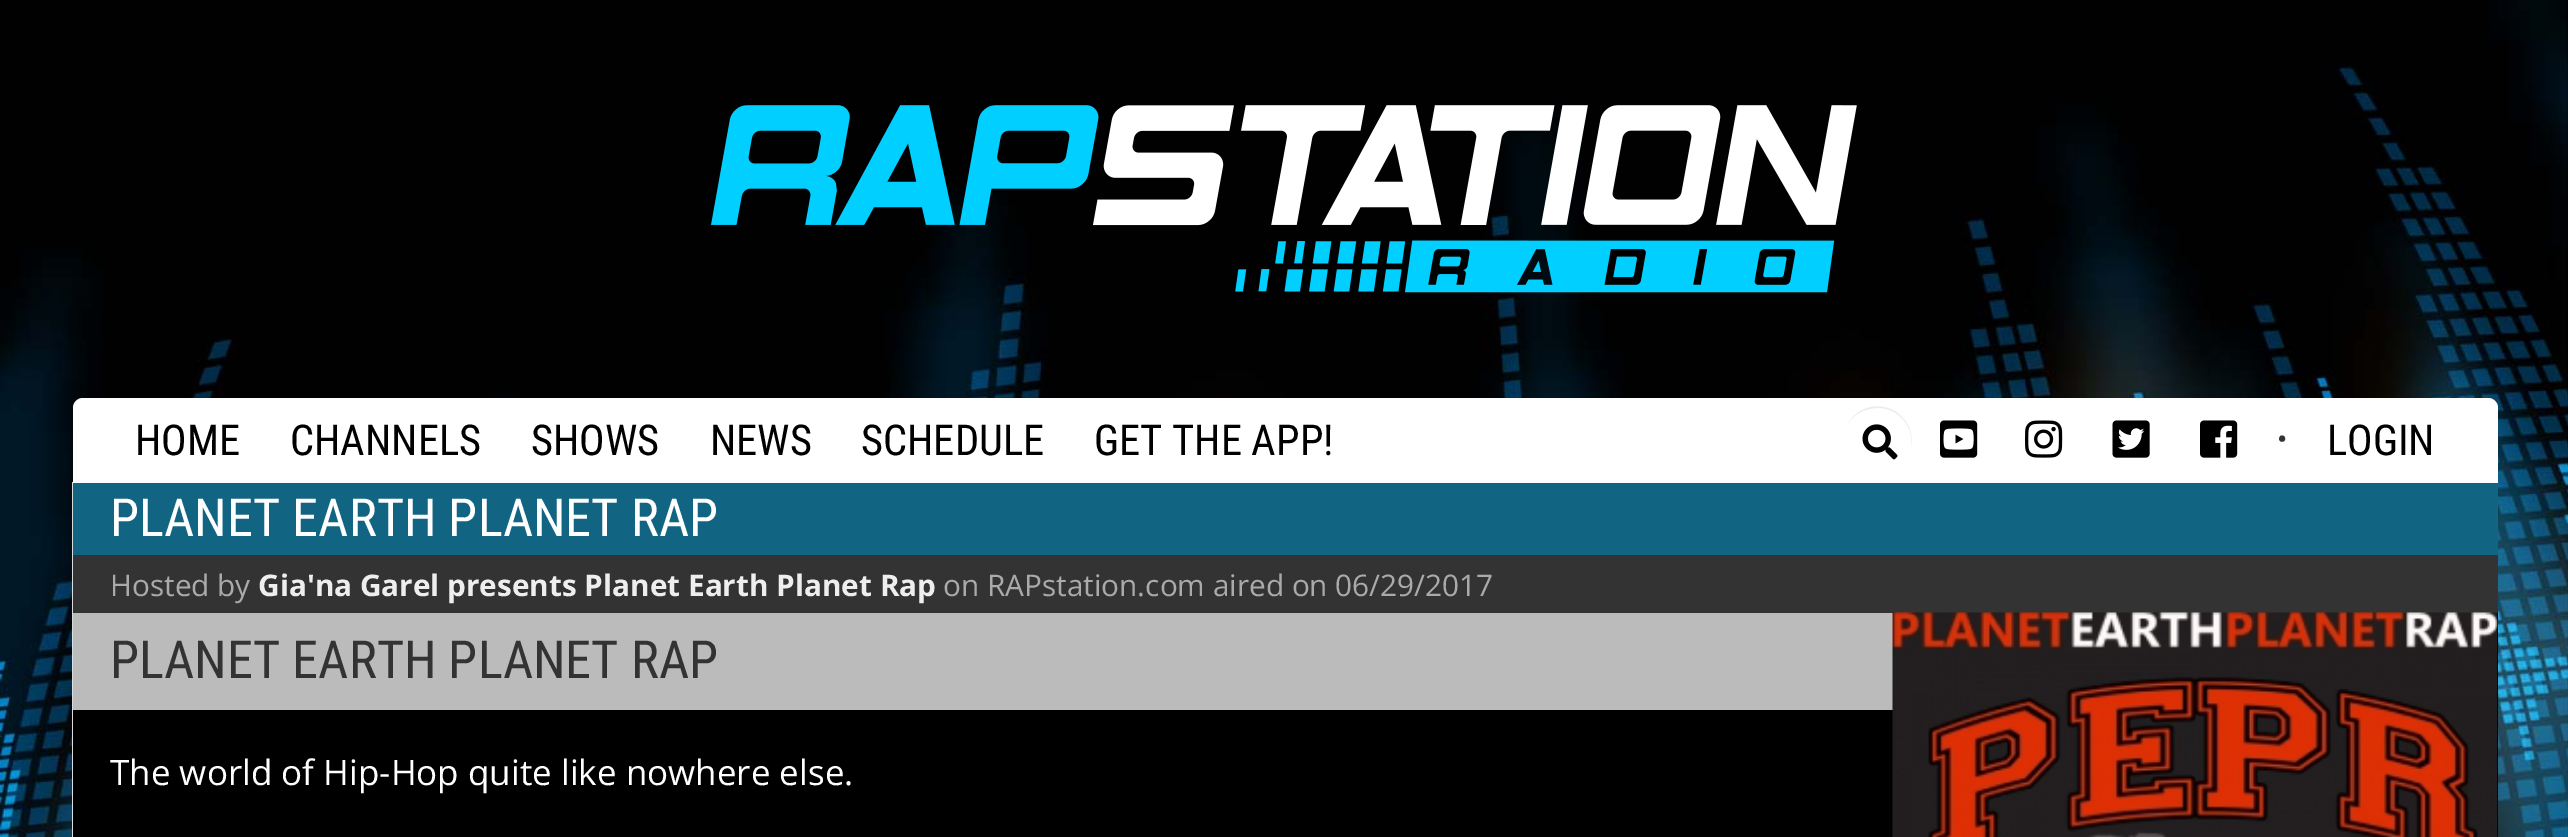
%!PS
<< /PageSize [2568 837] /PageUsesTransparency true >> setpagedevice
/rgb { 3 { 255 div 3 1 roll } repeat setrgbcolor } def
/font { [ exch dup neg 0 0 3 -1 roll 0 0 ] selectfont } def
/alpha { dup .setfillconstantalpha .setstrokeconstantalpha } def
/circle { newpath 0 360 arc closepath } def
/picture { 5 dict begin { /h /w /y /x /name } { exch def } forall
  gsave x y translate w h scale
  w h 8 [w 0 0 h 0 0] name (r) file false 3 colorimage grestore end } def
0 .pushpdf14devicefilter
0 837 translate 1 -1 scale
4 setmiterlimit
255 255 255 rgb
0 0 2568 837 rectfill
(img/1.rgb) 0 0 2568 837 picture
(img/2.rgb) 711 105 1146 188 picture
83 398 moveto 2488 398 lineto 2493.5 398 2498 402.5 2498 408 curveto 2498 483 lineto 73 483 lineto 73 408 lineto 73 402.5 77.5 398 83 398 curveto closepath fill
236 236 236 rgb
1878 408 moveto 1902 408 1917 432 1910 454 curveto 1924 422 1887 391 1858 411 curveto 1852 416 1847 421 1845 428 curveto 1851 416 1863 408 1878 408 curveto closepath fill
255 255 255 rgb
3 setlinewidth
1877.5 440.5 36 circle stroke
(img/3.rgb) 1862 424 36 36 picture
(img/4.rgb) 1940 420 38 38 picture
(img/5.rgb) 2025 420 38 38 picture
(img/6.rgb) 2112 420 38 38 picture
(img/7.rgb) 2200 420 38 38 picture
0.85 alpha
[
  [72 482 2426 355 255 255 255]
] { aload pop rgb rectfill } forall
1 alpha
[
  [73 483 2425 72 17 100 130]
  [73 555 2425 58 51 51 51]
  [73 613 2425 224 0 0 0]
  [73 613 1820 97 187 187 187]
] { aload pop rgb rectfill } forall
(img/8.rgb) 1892 612 606 225 picture
/RobotoCondensed-Regular 42.5 font
0 0 0 rgb
[
  [(HOME) 135 455]
  [(CHANNELS) 290 455]
  [(SHOWS) 531 455]
  [(NEWS) 710 455]
  [(SCHEDULE) 861 455]
  [(GET THE APP!) 1094 455]
] { aload pop moveto show } forall
/RobotoCondensed-Regular 60 font
51 51 51 rgb
2275 460 moveto (·) show
/RobotoCondensed-Regular 42.5 font
0 0 0 rgb
2327 455 moveto (LOGIN) show
/RobotoCondensed-Regular 52.5 font
255 255 255 rgb
110 536 moveto (PLANET EARTH PLANET RAP) show
/OpenSans-Regular 29.75 font
170 170 170 rgb
110 596 moveto (Hosted by) show
/OpenSans-Bold 29.75 font
238 238 238 rgb
258 596 moveto (Gia'na Garel presents Planet Earth Planet Rap) show
/OpenSans-Regular 29.75 font
170 170 170 rgb
943 596 moveto (on RAPstation.com aired on 06/29/2017) show
/RobotoCondensed-Regular 52.5 font
51 51 51 rgb
110 678 moveto (PLANET EARTH PLANET RAP) show
/OpenSans-Regular 35 font
255 255 255 rgb
110 785 moveto (The world of Hip-Hop quite like nowhere else.) show
.poppdf14devicefilter showpage
